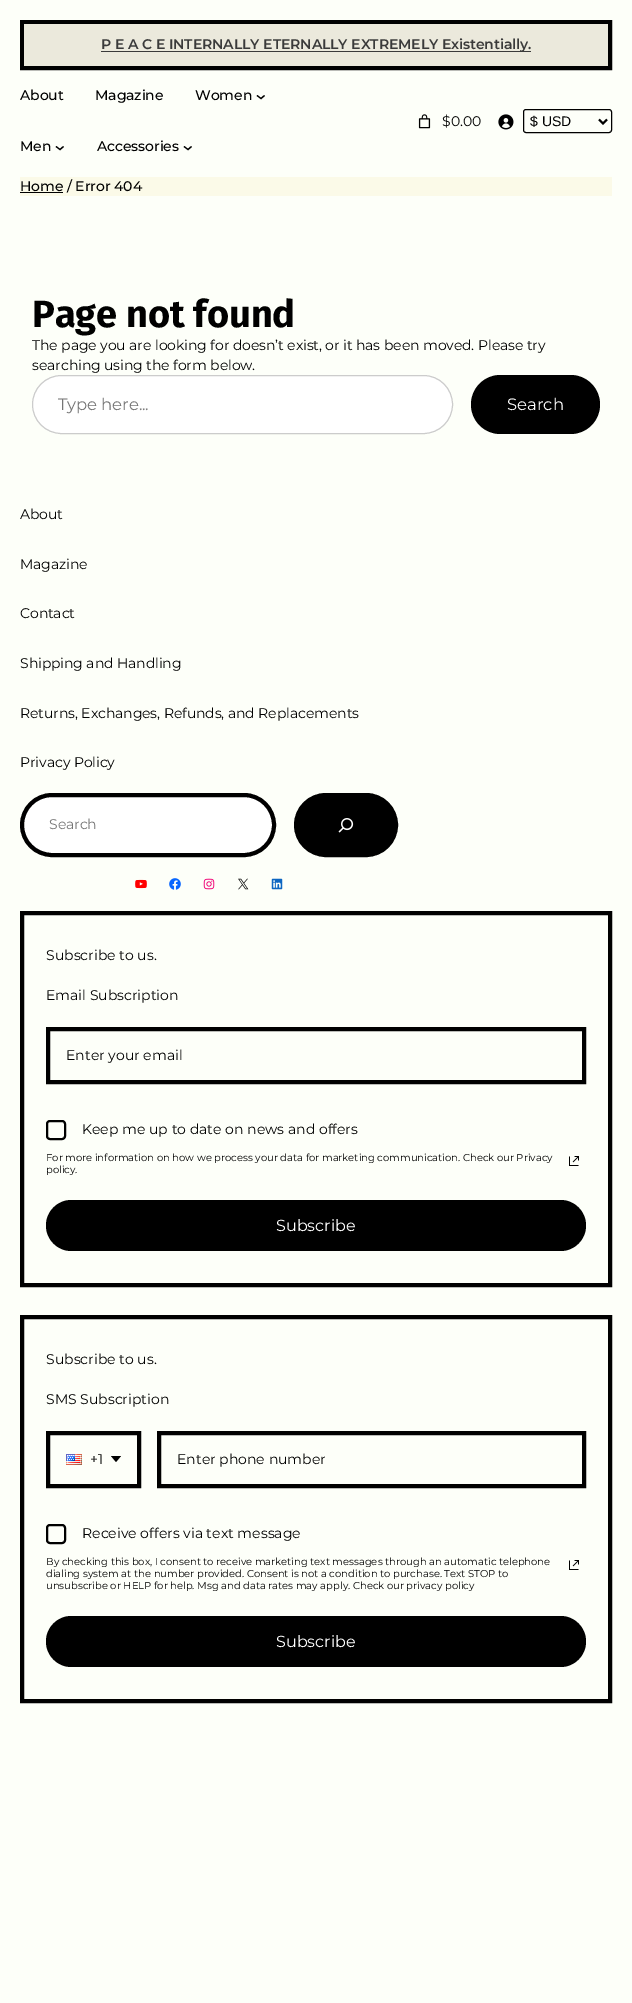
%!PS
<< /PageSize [632 2003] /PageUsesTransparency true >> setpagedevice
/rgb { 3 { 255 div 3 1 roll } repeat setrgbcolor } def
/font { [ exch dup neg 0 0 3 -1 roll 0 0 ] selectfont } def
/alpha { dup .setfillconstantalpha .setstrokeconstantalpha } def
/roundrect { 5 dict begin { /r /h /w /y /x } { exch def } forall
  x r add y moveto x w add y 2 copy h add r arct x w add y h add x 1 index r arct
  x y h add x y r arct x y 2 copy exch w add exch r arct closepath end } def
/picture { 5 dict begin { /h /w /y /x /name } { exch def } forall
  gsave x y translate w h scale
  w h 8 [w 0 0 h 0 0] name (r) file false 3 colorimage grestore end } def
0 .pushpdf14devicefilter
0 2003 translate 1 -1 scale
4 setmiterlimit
253 255 249 rgb
0 0 632 2003 rectfill
0 0 0 rgb
4 setlinewidth
22 22 588 46 rectstroke
235 233 220 rgb
24 24 584 42 rectfill
58 58 58 rgb
101 51 430 1 rectfill
0 0 0 rgb
1.2 setlinewidth
257 95.5 moveto 261 98.5 lineto 264.5 95.5 lineto stroke
56 146.5 moveto 60 149.5 lineto 63.5 146.5 lineto stroke
184 146.5 moveto 188 149.5 lineto 191.5 146.5 lineto stroke
(img/1.rgb) 418 114 13 15 picture
(img/2.rgb) 498 114 16 16 picture
1 setlinewidth
523.5 109.5 88 23 2.5 roundrect stroke
2 setlinewidth
599 119.5 moveto 603 123.5 lineto 607 119.5 lineto stroke
251 250 232 rgb
20 177 592 19 rectfill
0 0 0 rgb
20 192 43 1 rectfill
255 255 255 rgb
32 375 421 59 29.5 roundrect fill
0.2 alpha
0 0 0 rgb
1 setlinewidth
32.5 375.5 420 58 29 roundrect stroke
1 alpha
471 375 129 59 29.5 roundrect fill
255 255 255 rgb
22 795 252 60 30 roundrect gsave fill grestore
0 0 0 rgb
4 setlinewidth
stroke
296 795 100 60 30 roundrect gsave fill grestore
stroke
(img/3.rgb) 338 818 16 15 picture
(img/4.rgb) 135 879 12 10 picture
(img/5.rgb) 169 878 12 12 picture
(img/6.rgb) 203 878 12 12 picture
(img/7.rgb) 238 878 11 12 picture
(img/8.rgb) 271 878 12 12 picture
22 913 588 372 rectstroke
48 1029 536 53 rectstroke
2 setlinewidth
47 1121 18 18 3 roundrect stroke
(img/9.rgb) 569 1156 10 10 picture
46 1200 540 51 25.5 roundrect fill
4 setlinewidth
22 1317 588 384 rectstroke
48 1433 91 53 rectstroke
(img/10.rgb) 66 1454 16 11 picture
111 1456 moveto 121 1456 lineto 116 1462 lineto closepath eofill
159 1433 425 53 rectstroke
2 setlinewidth
47 1525 18 18 3 roundrect stroke
(img/9.rgb) 569 1560 10 10 picture
46 1616 540 51 25.5 roundrect fill
/Montserrat-SemiBold 14 font
58 58 58 rgb
101 49 moveto -0.1 0 (P E A C E INTERNALLY ETERNALLY EXTREMELY Existentially.) ashow
/Montserrat-Medium 14 font
0 0 0 rgb
20 100 moveto -0.1 0 (About) ashow
95 100 moveto -0.1 0 (Magazine) ashow
195 100 moveto -0.1 0 (Women) ashow
20 151 moveto -0.1 0 (Men) ashow
97 151 moveto -0.1 0 (Accessories) ashow
/Montserrat-Regular 14 font
442 126 moveto ($0.00) show
/LiberationSans-Regular 14 font
530 126 moveto ($ USD) show
/Montserrat-Medium 14 font
20 191 moveto -0.1 0 (Home / Error 404) ashow
/FiraSans-Bold 38 font
32 327 moveto -0.1 0 (Page not found) ashow
/Montserrat-Regular 14 font
32 350 moveto -0.1 0 (The page you are looking for doesn’t exist, or it has been moved. Please try) ashow
32 370 moveto -0.1 0 (searching using the form below.) ashow
/Montserrat-Regular 16.5 font
117 117 117 rgb
58 410 moveto -0.1 0 (Type here...) ashow
255 255 255 rgb
507 410 moveto (Search) show
/Montserrat-Regular 14 font
0 0 0 rgb
20 519 moveto -0.1 0 (About) ashow
20 569 moveto -0.1 0 (Magazine) ashow
20 618 moveto -0.1 0 (Contact) ashow
20 668 moveto -0.1 0 (Shipping and Handling) ashow
20 718 moveto -0.1 0 (Returns, Exchanges, Refunds, and Replacements) ashow
20 767 moveto -0.1 0 (Privacy Policy) ashow
117 117 117 rgb
49 829 moveto -0.1 0 (Search) ashow
/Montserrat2-Regular 14 font
0 0 0 rgb
[
  [(Subscribe to us.) 46 960]
  [(Email Subscription) 46 1000]
  [(Enter your email) 66 1060]
  [(Keep me up to date on news and offers) 82 1134]
] { aload pop moveto show } forall
/Montserrat2-Regular 10 font
46 1161 moveto (For more information on how we process your data for marketing communication. Check our Privacy) show
46 1173 moveto (policy.) show
/Montserrat2-Regular 16 font
255 255 255 rgb
276 1231 moveto (Subscribe) show
/Montserrat2-Regular 14 font
0 0 0 rgb
[
  [(Subscribe to us.) 46 1364]
  [(SMS Subscription) 46 1404]
  [(+1) 90 1464]
  [(Enter phone number) 177 1464]
  [(Receive offers via text message) 82 1538]
] { aload pop moveto show } forall
/Montserrat2-Regular 10 font
[
  [(By checking this box, I consent to receive marketing text messages through an automatic telephone) 46 1565]
  [(dialing system at the number provided. Consent is not a condition to purchase. Text STOP to) 46 1577]
  [(unsubscribe or HELP for help. Msg and data rates may apply. Check our privacy policy) 46 1589]
] { aload pop moveto show } forall
/Montserrat2-Regular 16 font
255 255 255 rgb
276 1647 moveto (Subscribe) show
.poppdf14devicefilter showpage
